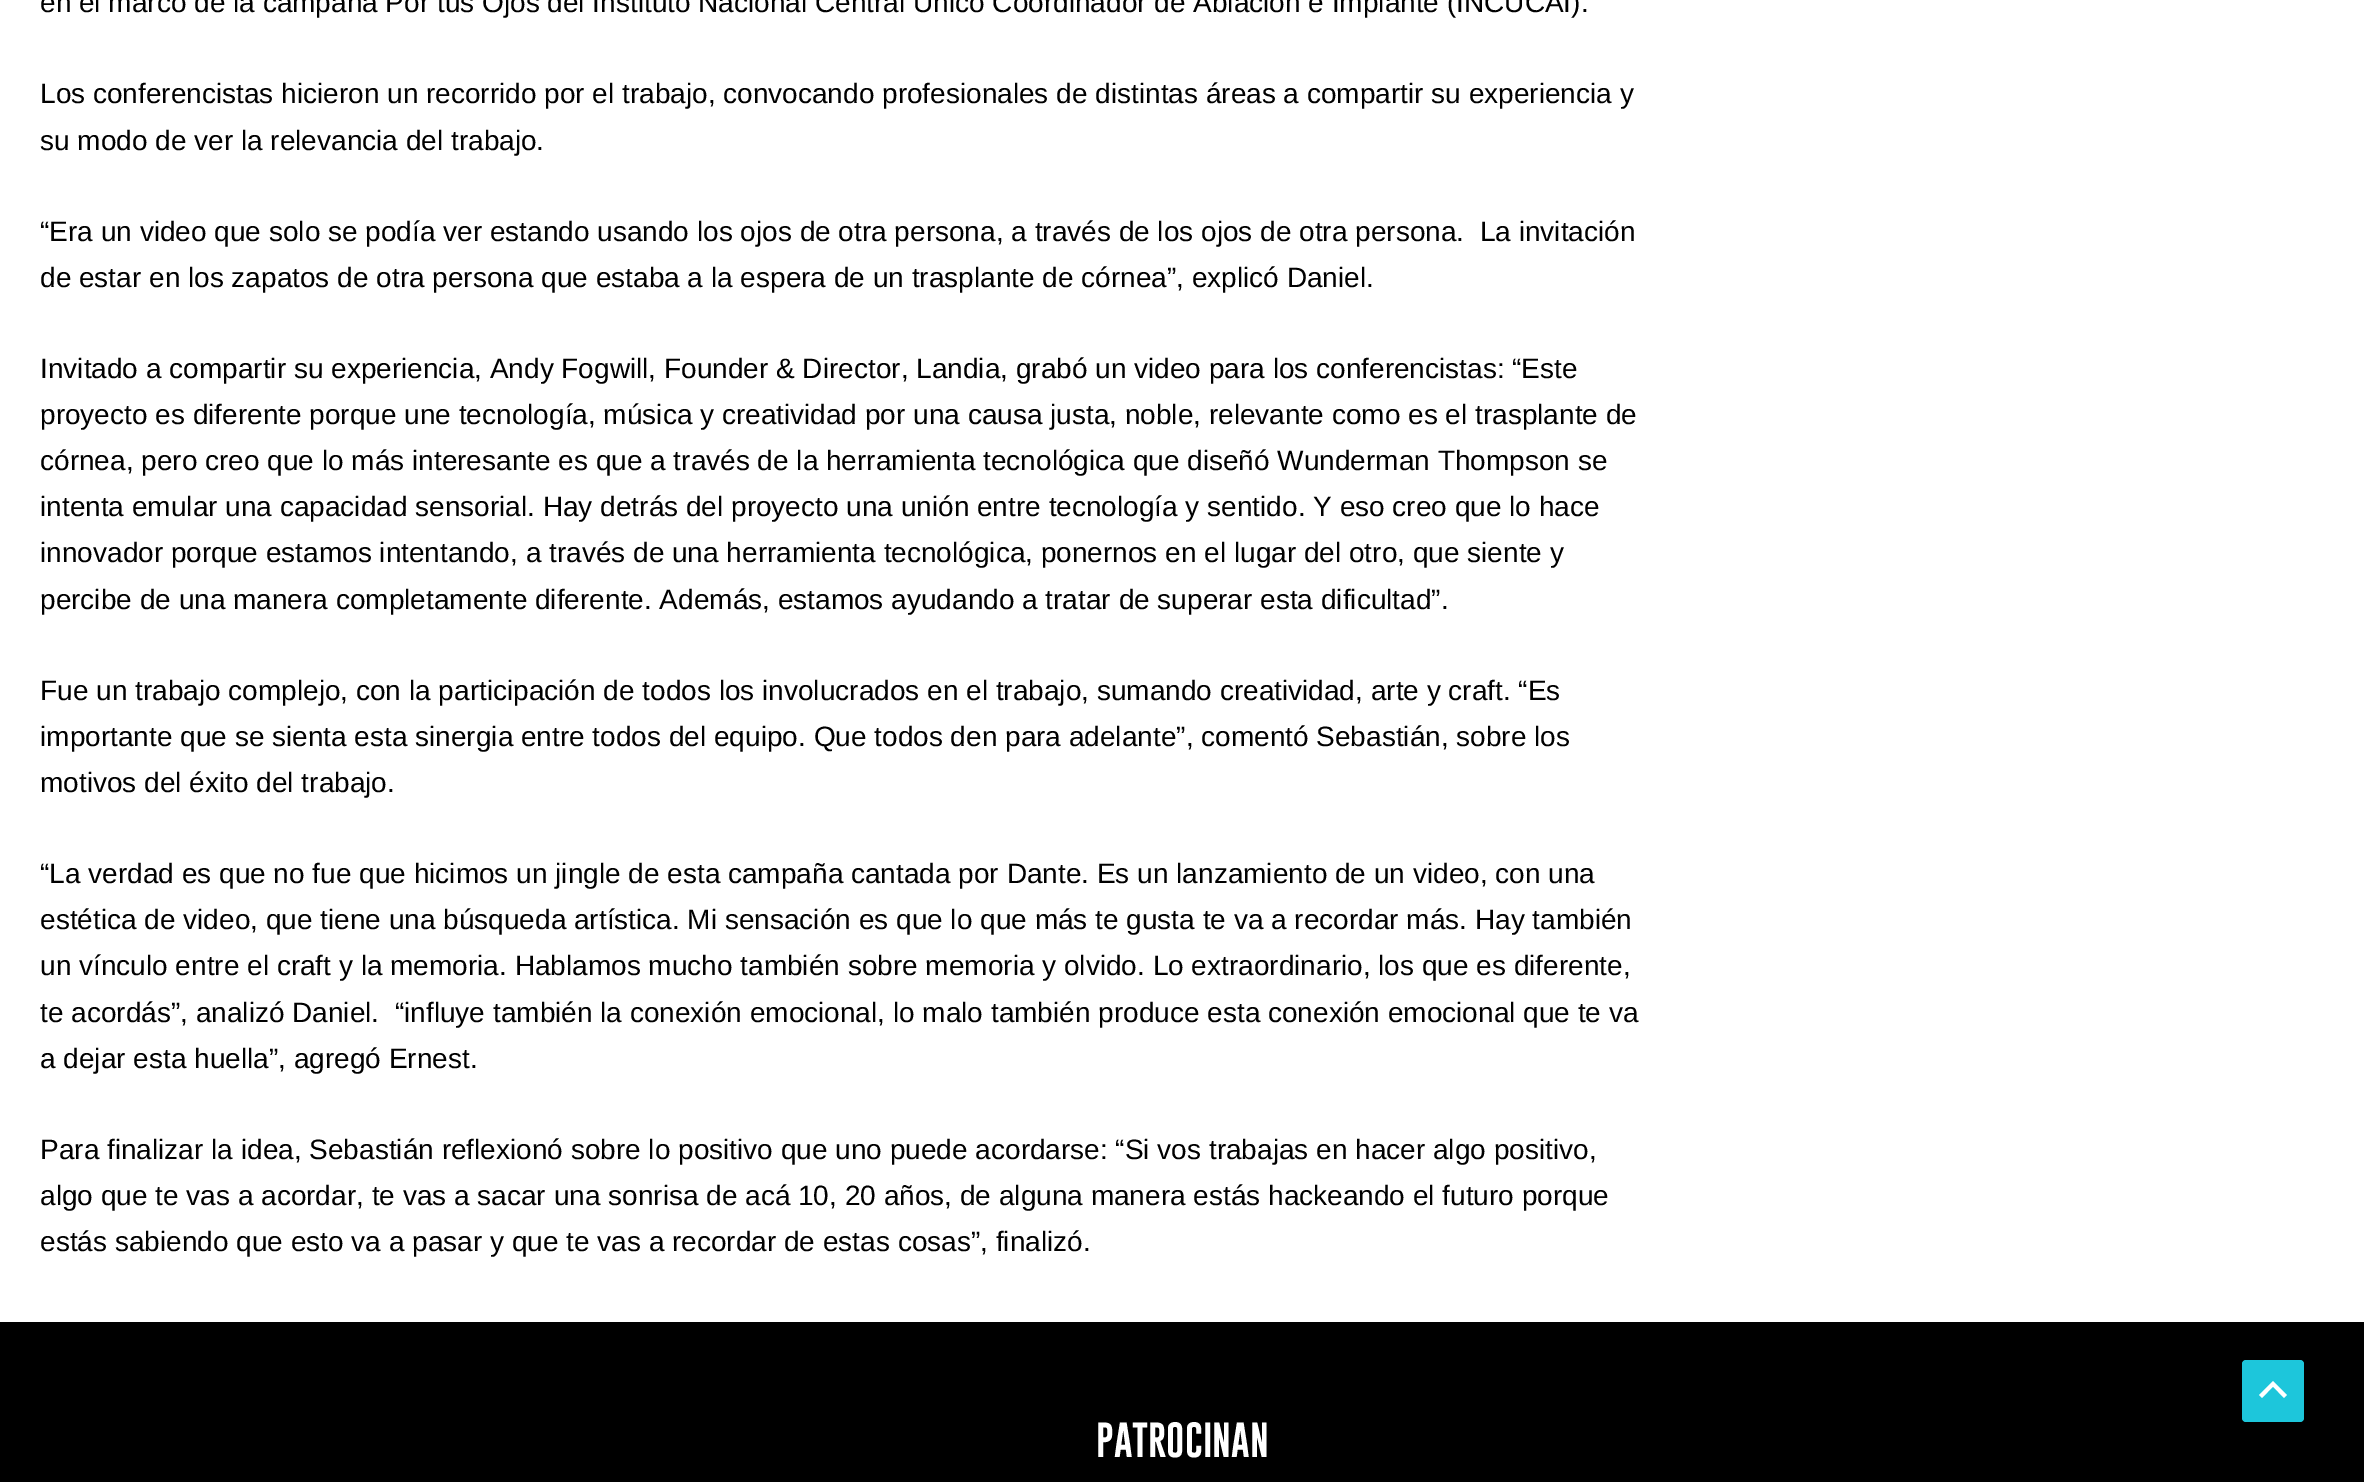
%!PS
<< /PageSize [2364 1482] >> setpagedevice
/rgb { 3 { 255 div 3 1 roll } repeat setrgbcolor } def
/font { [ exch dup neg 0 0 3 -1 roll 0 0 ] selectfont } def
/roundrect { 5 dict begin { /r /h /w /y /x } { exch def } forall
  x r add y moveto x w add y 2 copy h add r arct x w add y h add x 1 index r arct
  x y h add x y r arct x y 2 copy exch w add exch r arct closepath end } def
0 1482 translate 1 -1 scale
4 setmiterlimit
255 255 255 rgb
0 0 2364 1482 rectfill
0 0 0 rgb
0 1322 2364 160 rectfill
29 198 219 rgb
2242 1360 62 62 4 roundrect fill
255 255 255 rgb
2287 1395 moveto 2273 1381 lineto 2259 1395 lineto 2262 1398 lineto 2273 1386.5 lineto 2284 1398 lineto closepath fill
/LiberationSans-Regular 28 font
0 0 0 rgb
[
  [(en el marco de la campaña Por tus Ojos del Instituto Nacional Central Único Coordinador de Ablación e Implante \(INCUCAI\).) 40 12]
  [(Los conferencistas hicieron un recorrido por el trabajo, convocando profesionales de distintas áreas a compartir su experiencia y) 40 103]
  [(su modo de ver la relevancia del trabajo.) 40 150]
  [(“Era un video que solo se podía ver estando usando los ojos de otra persona, a través de los ojos de otra persona.  La invitación) 40 241]
  [(de estar en los zapatos de otra persona que estaba a la espera de un trasplante de córnea”, explicó Daniel.) 40 287]
  [(Invitado a compartir su experiencia, Andy Fogwill, Founder & Director, Landia, grabó un video para los conferencistas: “Este) 40 378]
  [(proyecto es diferente porque une tecnología, música y creatividad por una causa justa, noble, relevante como es el trasplante de) 40 424]
  [(córnea, pero creo que lo más interesante es que a través de la herramienta tecnológica que diseñó Wunderman Thompson se) 40 470]
  [(intenta emular una capacidad sensorial. Hay detrás del proyecto una unión entre tecnología y sentido. Y eso creo que lo hace) 40 516]
  [(innovador porque estamos intentando, a través de una herramienta tecnológica, ponernos en el lugar del otro, que siente y) 40 562]
  [(percibe de una manera completamente diferente. Además, estamos ayudando a tratar de superar esta dificultad”.) 40 609]
  [(Fue un trabajo complejo, con la participación de todos los involucrados en el trabajo, sumando creatividad, arte y craft. “Es) 40 700]
  [(importante que se sienta esta sinergia entre todos del equipo. Que todos den para adelante”, comentó Sebastián, sobre los) 40 746]
  [(motivos del éxito del trabajo.) 40 792]
  [(“La verdad es que no fue que hicimos un jingle de esta campaña cantada por Dante. Es un lanzamiento de un video, con una) 40 883]
  [(estética de video, que tiene una búsqueda artística. Mi sensación es que lo que más te gusta te va a recordar más. Hay también) 40 929]
  [(un vínculo entre el craft y la memoria. Hablamos mucho también sobre memoria y olvido. Lo extraordinario, los que es diferente,) 40 975]
  [(te acordás”, analizó Daniel.  “influye también la conexión emocional, lo malo también produce esta conexión emocional que te va) 40 1022]
  [(a dejar esta huella”, agregó Ernest.) 40 1068]
  [(Para finalizar la idea, Sebastián reflexionó sobre lo positivo que uno puede acordarse: “Si vos trabajas en hacer algo positivo,) 40 1159]
  [(algo que te vas a acordar, te vas a sacar una sonrisa de acá 10, 20 años, de alguna manera estás hackeando el futuro porque) 40 1205]
  [(estás sabiendo que esto va a pasar y que te vas a recordar de estas cosas”, finalizó.) 40 1251]
] { aload pop moveto show } forall
/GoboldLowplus-Bold 36 font
255 255 255 rgb
1096 1457 moveto (PATROCINAN) show
showpage
